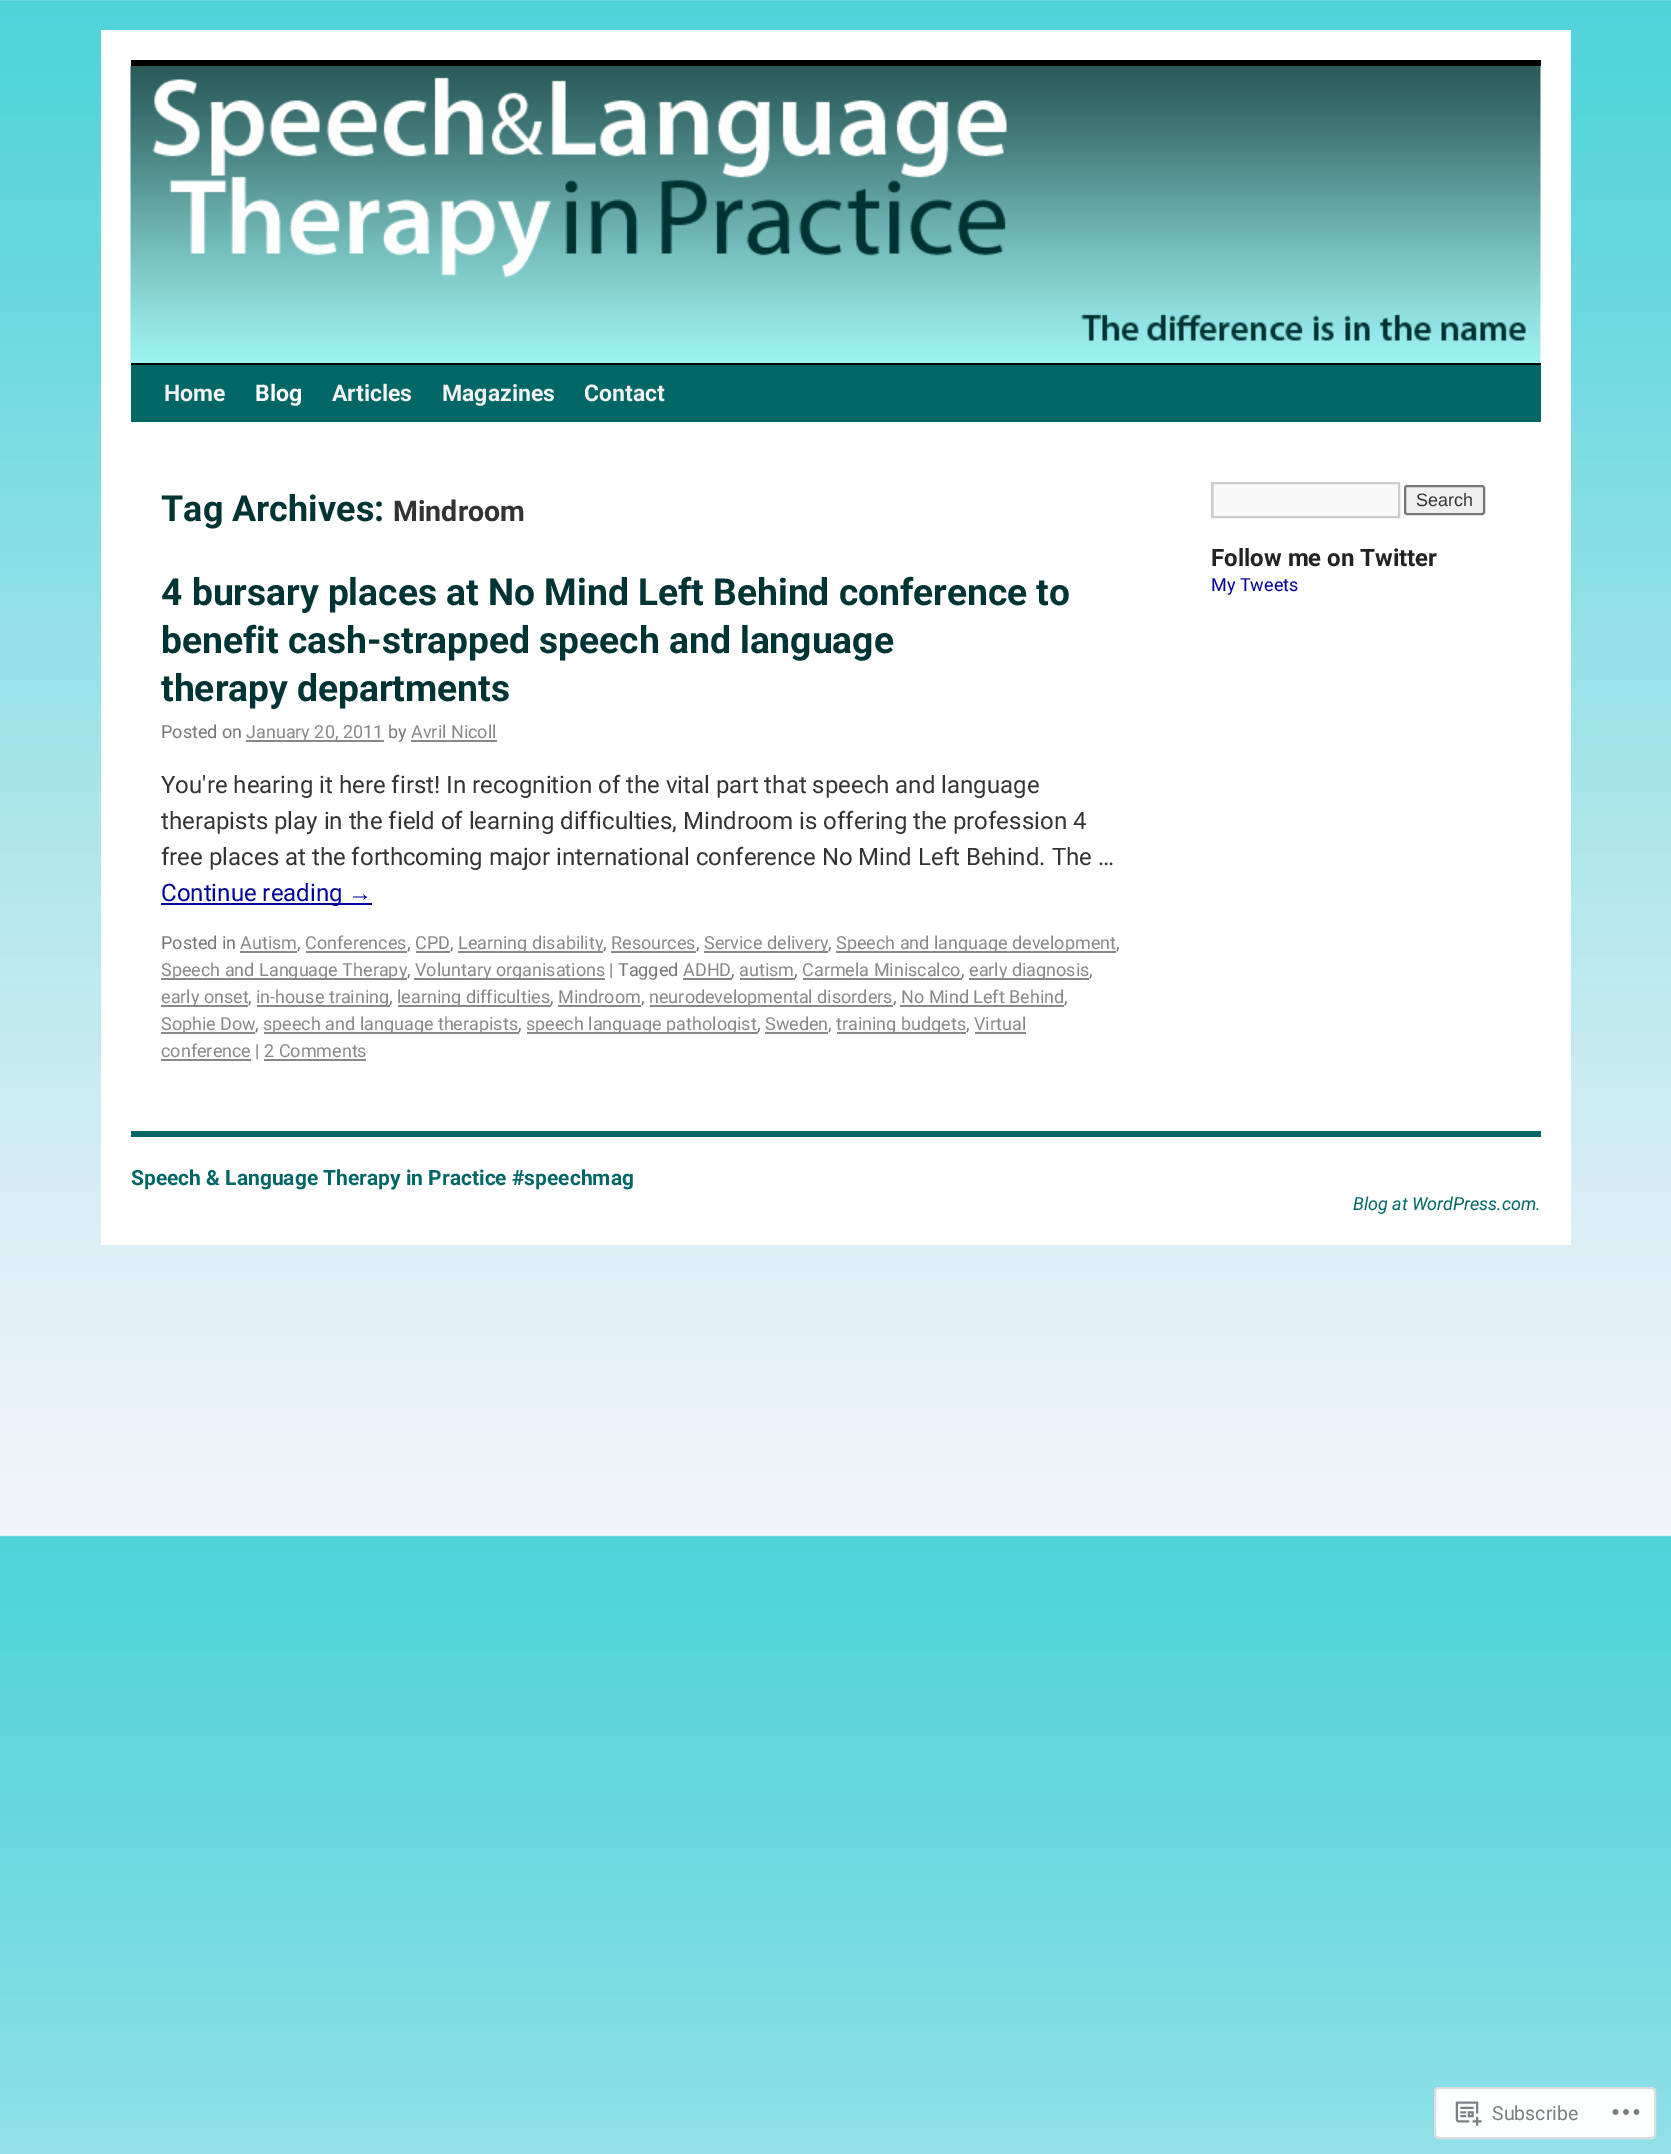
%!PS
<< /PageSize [1671 2154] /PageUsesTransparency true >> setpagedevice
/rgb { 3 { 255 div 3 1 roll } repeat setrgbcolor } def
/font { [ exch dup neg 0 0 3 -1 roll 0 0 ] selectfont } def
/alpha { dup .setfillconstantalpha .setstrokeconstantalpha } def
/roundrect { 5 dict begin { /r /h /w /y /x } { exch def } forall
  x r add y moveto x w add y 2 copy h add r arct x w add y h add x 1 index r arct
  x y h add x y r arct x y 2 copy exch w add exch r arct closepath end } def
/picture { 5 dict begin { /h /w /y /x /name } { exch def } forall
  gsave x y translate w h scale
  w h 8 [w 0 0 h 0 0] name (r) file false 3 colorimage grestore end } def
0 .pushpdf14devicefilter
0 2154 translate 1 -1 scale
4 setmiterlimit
255 255 255 rgb
0 0 1671 2154 rectfill
(img/1.rgb) 0 0 1671 2154 picture
[
  [101 30 1470 1215 255 255 255]
  [131 60 1410 6 0 0 0]
  [131 363 1410 2 0 0 0]
] { aload pop rgb rectfill } forall
(img/2.rgb) 130 66 1411 297 picture
[
  [131 365 1410 57 0 102 102]
  [246 740 138 2 136 136 136]
  [411 740 86 2 136 136 136]
  [161 903 211 2 0 0 153]
  [240 951 57 2 136 136 136]
  [306 951 101 2 136 136 136]
  [416 951 34 2 136 136 136]
  [458 951 145 2 136 136 136]
  [611 951 85 2 136 136 136]
  [704 951 124 2 136 136 136]
  [836 951 280 2 136 136 136]
  [161 978 246 2 136 136 136]
  [414 978 191 2 136 136 136]
  [683 978 49 2 136 136 136]
  [740 978 55 2 136 136 136]
  [803 978 159 2 136 136 136]
  [969 978 120 2 136 136 136]
  [161 1005 87 2 136 136 136]
  [257 1005 133 2 136 136 136]
  [398 1005 153 2 136 136 136]
  [558 1005 83 2 136 136 136]
  [650 1005 243 2 136 136 136]
  [900 1005 164 2 136 136 136]
  [161 1032 94 2 136 136 136]
  [264 1032 255 2 136 136 136]
  [527 1032 231 2 136 136 136]
  [765 1032 63 2 136 136 136]
  [837 1032 129 2 136 136 136]
  [975 1032 51 2 136 136 136]
  [161 1059 90 2 136 136 136]
  [264 1059 102 2 136 136 136]
  [1214 484 184 32 249 249 249]
] { aload pop rgb rectfill } forall
gsave
1212 483 186 33 rectclip
224 224 224 rgb
1064 334 moveto 1546 334 lineto 1546 664 lineto 1064 664 lineto closepath 1214 484 moveto 1400 484 lineto 1400 518 lineto 1214 518 lineto closepath eofill
grestore
204 204 204 rgb
2 setlinewidth
1212 483 187 34 rectstroke
239 239 239 rgb
1405 486 79 28 2 roundrect gsave fill grestore
118 118 118 rgb
stroke
0 102 102 rgb
131 1131 1410 6 rectfill
0.98 alpha
255 255 255 rgb
1434 2087 222 52 5 roundrect fill
220 220 222 rgb
1435 2088 220 50 4 roundrect stroke
1 alpha
(img/3.rgb) 1455 2101 27 25 picture
(img/4.rgb) 1612 2109 28 6 picture
/Roboto-Bold 23 font
242 242 242 rgb
164 401 moveto (Home) show
255 255 255 rgb
255 401 moveto (Blog) show
242 242 242 rgb
[
  [(Articles) 332 401]
  [(Magazines) 442 401]
  [(Contact) 584 401]
] { aload pop moveto show } forall
/Roboto-Bold 36 font
0 51 51 rgb
161 521 moveto (Tag Archives:) show
/Roboto-Bold 28.5 font
51 51 51 rgb
393 521 moveto (Mindroom) show
/Roboto-Bold 37.2 font
0 51 51 rgb
[
  [(4 bursary places at No Mind Left Behind conference to) 161 605]
  [(benefit cash-strapped speech and language) 161 653]
  [(therapy departments) 161 701]
] { aload pop moveto show } forall
/Roboto-Regular 18 font
119 119 119 rgb
161 738 moveto (Posted on) show
136 136 136 rgb
246 738 moveto (January 20, 2011) show
119 119 119 rgb
388 738 moveto (by) show
136 136 136 rgb
411 738 moveto (Avril Nicoll) show
/Roboto-Regular 24 font
51 51 51 rgb
[
  [(You're hearing it here first! In recognition of the vital part that speech and language) 161 793]
  [(therapists play in the field of learning difficulties, Mindroom is offering the profession 4) 161 829]
  [(free places at the forthcoming major international conference No Mind Left Behind. The …) 161 865]
] { aload pop moveto show } forall
0 0 153 rgb
161 901 moveto (Continue reading) show
/LiberationSans-Regular 24 font
348 901 moveto (→) show
/Roboto-Regular 18 font
119 119 119 rgb
161 949 moveto (Posted in) show
136 136 136 rgb
240 949 moveto (Autism) show
119 119 119 rgb
297 949 moveto (,) show
136 136 136 rgb
305 949 moveto (Conferences) show
119 119 119 rgb
407 949 moveto (,) show
136 136 136 rgb
415 949 moveto (CPD) show
119 119 119 rgb
450 949 moveto (,) show
136 136 136 rgb
458 949 moveto (Learning disability) show
119 119 119 rgb
603 949 moveto (,) show
136 136 136 rgb
611 949 moveto (Resources) show
119 119 119 rgb
696 949 moveto (,) show
136 136 136 rgb
704 949 moveto (Service delivery) show
119 119 119 rgb
828 949 moveto (,) show
136 136 136 rgb
836 949 moveto (Speech and language development) show
119 119 119 rgb
1116 949 moveto (,) show
136 136 136 rgb
161 976 moveto (Speech and Language Therapy) show
119 119 119 rgb
407 976 moveto (,) show
136 136 136 rgb
415 976 moveto (Voluntary organisations) show
119 119 119 rgb
609 976 moveto (| Tagged) show
136 136 136 rgb
683 976 moveto (ADHD) show
119 119 119 rgb
731 976 moveto (,) show
136 136 136 rgb
739 976 moveto (autism) show
119 119 119 rgb
794 976 moveto (,) show
136 136 136 rgb
802 976 moveto (Carmela Miniscalco) show
119 119 119 rgb
961 976 moveto (,) show
136 136 136 rgb
969 976 moveto (early diagnosis) show
119 119 119 rgb
1089 976 moveto (,) show
136 136 136 rgb
161 1003 moveto (early onset) show
119 119 119 rgb
248 1003 moveto (,) show
136 136 136 rgb
256 1003 moveto (in-house training) show
119 119 119 rgb
389 1003 moveto (,) show
136 136 136 rgb
397 1003 moveto (learning difficulties) show
119 119 119 rgb
550 1003 moveto (,) show
136 136 136 rgb
558 1003 moveto (Mindroom) show
119 119 119 rgb
641 1003 moveto (,) show
136 136 136 rgb
649 1003 moveto (neurodevelopmental disorders) show
119 119 119 rgb
893 1003 moveto (,) show
136 136 136 rgb
901 1003 moveto (No Mind Left Behind) show
119 119 119 rgb
1064 1003 moveto (,) show
136 136 136 rgb
161 1030 moveto (Sophie Dow) show
119 119 119 rgb
255 1030 moveto (,) show
136 136 136 rgb
263 1030 moveto (speech and language therapists) show
119 119 119 rgb
518 1030 moveto (,) show
136 136 136 rgb
526 1030 moveto (speech language pathologist) show
119 119 119 rgb
757 1030 moveto (,) show
136 136 136 rgb
765 1030 moveto (Sweden) show
119 119 119 rgb
828 1030 moveto (,) show
136 136 136 rgb
836 1030 moveto (training budgets) show
119 119 119 rgb
966 1030 moveto (,) show
136 136 136 rgb
974 1030 moveto (Virtual) show
161 1057 moveto (conference) show
119 119 119 rgb
255 1057 moveto (|) show
136 136 136 rgb
264 1057 moveto (2 Comments) show
/LiberationSans-Regular 18 font
51 51 51 rgb
1416 506 moveto (Search) show
/Roboto-Bold 24 font
34 34 34 rgb
1211 566 moveto (Follow me on Twitter) show
/Roboto-Regular 18 font
0 0 153 rgb
1211 591 moveto (My Tweets) show
/Roboto-Bold 21 font
0 102 102 rgb
131 1185 moveto (Speech & Language Therapy in Practice #speechmag) show
/Roboto-Italic 18 font
1353 1210 moveto (Blog at WordPress.com.) show
/Roboto-Regular 19.5 font
120 126 132 rgb
1492 2120 moveto (Subscribe) show
.poppdf14devicefilter showpage
